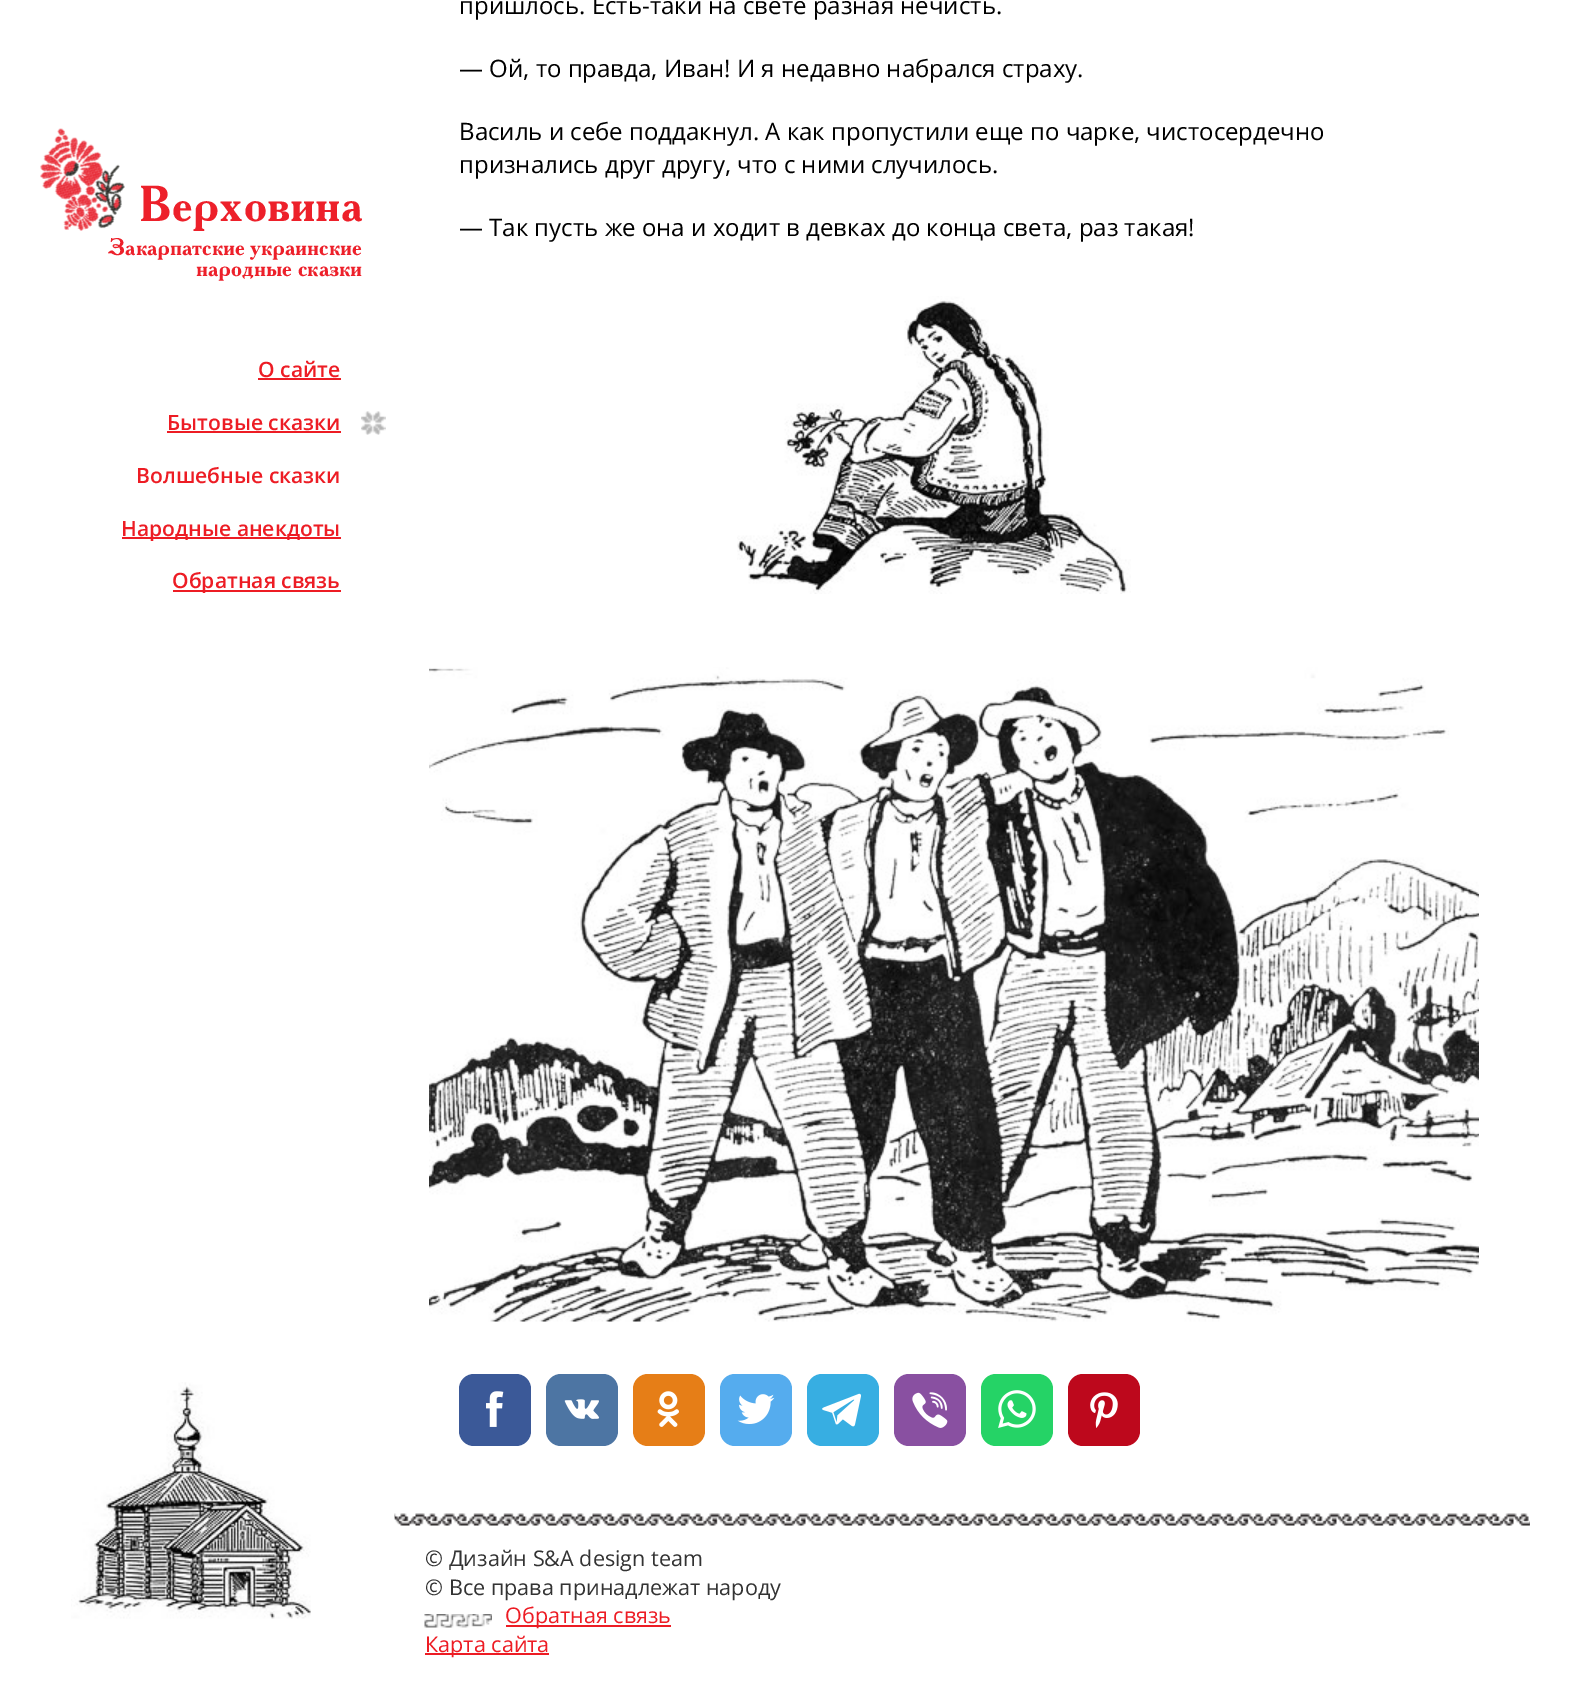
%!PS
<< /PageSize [1577 1693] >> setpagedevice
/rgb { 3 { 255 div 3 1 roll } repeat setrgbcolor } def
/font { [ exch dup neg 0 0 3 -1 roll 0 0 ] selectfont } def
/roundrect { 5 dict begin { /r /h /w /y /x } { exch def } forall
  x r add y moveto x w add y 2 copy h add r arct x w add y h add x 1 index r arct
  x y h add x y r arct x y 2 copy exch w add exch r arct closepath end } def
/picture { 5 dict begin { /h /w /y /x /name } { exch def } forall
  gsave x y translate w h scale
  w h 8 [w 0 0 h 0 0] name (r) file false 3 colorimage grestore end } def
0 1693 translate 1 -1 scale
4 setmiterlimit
255 255 255 rgb
0 0 1577 1693 rectfill
(img/1.rgb) 737 296 394 298 picture
(img/2.rgb) 429 667 1050 655 picture
59 89 152 rgb
459 1374 72 72 15 roundrect fill
(img/3.rgb) 486 1391 18 36 picture
77 117 163 rgb
546 1374 72 72 15 roundrect fill
(img/4.rgb) 564 1399 36 20 picture
230 126 23 rgb
633 1374 72 72 15 roundrect fill
(img/5.rgb) 657 1391 22 36 picture
85 172 238 rgb
720 1374 72 72 15 roundrect fill
(img/6.rgb) 737 1394 38 30 picture
55 174 226 rgb
807 1374 72 72 15 roundrect fill
(img/7.rgb) 822 1393 39 34 picture
137 80 161 rgb
894 1374 72 72 15 roundrect fill
(img/8.rgb) 912 1392 36 36 picture
37 211 102 rgb
981 1374 72 72 15 roundrect fill
(img/9.rgb) 998 1390 38 38 picture
189 8 28 rgb
1068 1374 72 72 15 roundrect fill
(img/10.rgb) 1090 1392 28 36 picture
(img/11.rgb) 40 128 85 103 picture
237 28 36 rgb
258 378 83 2 rectfill
167 431 174 2 rectfill
(img/12.rgb) 361 411 25 24 picture
122 537 219 2 rectfill
173 590 168 2 rectfill
(img/13.rgb) 71 1382 240 237 picture
(img/14.rgb) 394 1513 1136 13 picture
(img/15.rgb) 424 1614 68 14 picture
506 1625 165 2 rectfill
425 1653 124 2 rectfill
/OpenSans-Regular 24 font
0 0 0 rgb
[
  [(пришлось. Есть-таки на свете разная нечисть.) 459 14]
  [(— Ой, то правда, Иван! И я недавно набрался страху.) 459 77]
  [(Василь и себе поддакнул. А как пропустили еще по чарке, чистосердечно) 459 140]
  [(признались друг другу, что с ними случилось.) 459 173]
  [(— Так пусть же она и ходит в девках до конца света, раз такая!) 459 236]
] { aload pop moveto show } forall
/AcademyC-Bold 50.5 font
237 32 42 rgb
139 221 moveto (Верховина) show
/AcademyC-Bold 24 font
108 255 moveto (Закарпатские украинские) show
196 276 moveto (народные сказки) show
/OpenSans-SemiBold 21.1 font
237 28 36 rgb
[
  [(О сайте) 258 377]
  [(Бытовые сказки) 167 430]
  [(Волшебные сказки) 136 483]
  [(Народные анекдоты) 121 536]
  [(Обратная связь) 172 588]
] { aload pop moveto show } forall
/OpenSans-Regular 21.6 font
51 51 51 rgb
425 1566 moveto (© Дизайн S&A design team) show
425 1595 moveto (© Все права принадлежат народу) show
237 28 36 rgb
505 1623 moveto (Обратная связь) show
425 1652 moveto (Карта сайта) show
showpage
